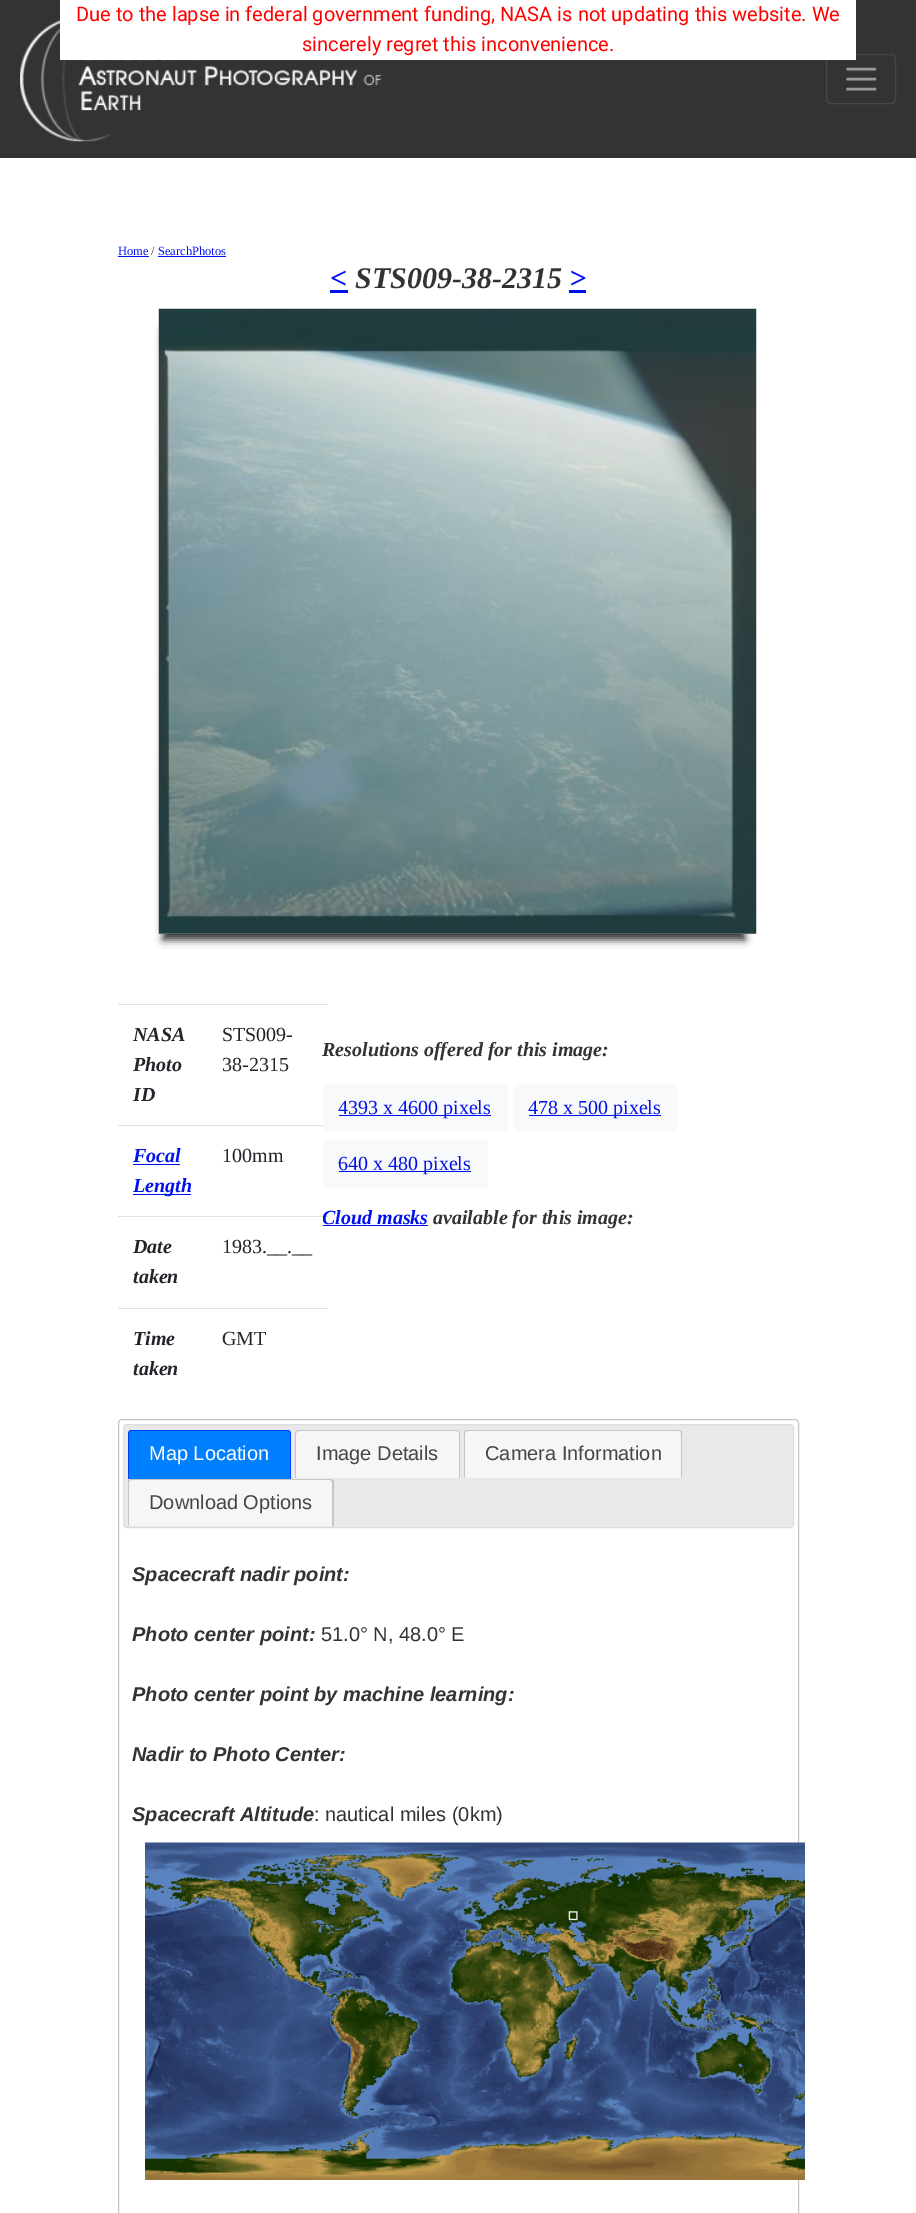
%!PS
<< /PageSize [916 2213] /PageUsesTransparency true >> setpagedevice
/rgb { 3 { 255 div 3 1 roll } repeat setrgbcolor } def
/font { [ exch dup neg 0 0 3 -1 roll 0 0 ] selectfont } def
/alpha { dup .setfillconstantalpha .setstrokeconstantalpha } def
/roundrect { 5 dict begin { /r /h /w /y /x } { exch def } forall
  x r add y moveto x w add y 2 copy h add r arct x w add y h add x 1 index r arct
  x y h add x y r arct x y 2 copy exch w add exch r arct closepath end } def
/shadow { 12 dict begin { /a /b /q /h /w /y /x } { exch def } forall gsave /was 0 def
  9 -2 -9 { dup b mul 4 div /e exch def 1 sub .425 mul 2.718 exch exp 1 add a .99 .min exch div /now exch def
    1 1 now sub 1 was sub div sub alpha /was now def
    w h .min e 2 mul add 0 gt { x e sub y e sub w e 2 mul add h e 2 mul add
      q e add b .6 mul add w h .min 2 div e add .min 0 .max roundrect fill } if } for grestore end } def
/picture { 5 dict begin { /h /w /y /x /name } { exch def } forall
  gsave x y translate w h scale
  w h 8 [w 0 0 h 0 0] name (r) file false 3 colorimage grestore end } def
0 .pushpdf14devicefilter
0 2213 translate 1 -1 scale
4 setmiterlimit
255 255 255 rgb
0 0 916 2213 rectfill
51 51 51 rgb
0 0 916 158 rectfill
(img/1.rgb) 20 20 362 122 picture
71 71 71 rgb
826.5 54.5 69 49 4.5 roundrect stroke
153 153 153 rgb
2.5 setlinewidth
1 setlinecap
847.5 69 moveto 875 69 lineto 847.5 79 moveto 875 79 lineto 847.5 89 moveto 875 89 lineto stroke
[
  [60 0 796 60 255 255 255]
  [118 256 31 1 0 17 238]
  [158 256 68 1 0 17 238]
  [330 290 18 3 0 17 238]
  [569 290 17 3 0 17 238]
] { aload pop rgb rectfill } forall
51 51 51 rgb
163 330 582 610 0 4 1 shadow
(img/2.rgb) 158 308 599 626 picture
[
  [118 1004 210 1 222 226 230]
  [133 1164 47 1 0 17 238]
  [133 1194 58 1 0 17 238]
  [118 1125 210 1 222 226 230]
  [118 1216 210 1 222 226 230]
  [118 1308 210 1 222 226 230]
] { aload pop rgb rectfill } forall
248 249 250 rgb
323 1084 185 47 5 roundrect fill
0 17 238 rgb
339 1115 152 1 rectfill
248 249 250 rgb
513 1084 165 47 5 roundrect fill
0 17 238 rgb
529 1115 132 1 rectfill
248 249 250 rgb
323 1140 165 48 5 roundrect fill
0 17 238 rgb
339 1171 132 1 rectfill
323 1225 105 1 rectfill
197 197 197 rgb
1 setlinewidth
0 setlinecap
118.5 1419.5 680 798 3.5 roundrect stroke
233 233 233 rgb
123.5 1424.5 670 103 3.5 roundrect gsave fill grestore
221 221 221 rgb
stroke
0 127 255 rgb
131.5 1431 moveto 287.5 1431 lineto 289 1431 290 1432 290 1433.5 curveto 290 1479 lineto 129 1479 lineto 129 1433.5 lineto 129 1432 130 1431 131.5 1431 curveto closepath fill
0 62 255 rgb
131 1430 moveto 288 1430 lineto 290 1430 291 1432 291 1434 curveto 291 1479 lineto 128 1479 lineto 128 1434 lineto 128 1432 129 1430 131 1430 curveto closepath 131 1431 moveto 288 1431 lineto 289 1431 290 1432 290 1434 curveto 290 1479 lineto 129 1479 lineto 129 1434 lineto 129 1432 130 1431 131 1431 curveto closepath eofill
246 246 246 rgb
298.5 1431 moveto 456.5 1431 lineto 458 1431 459 1432 459 1433.5 curveto 459 1478 lineto 296 1478 lineto 296 1433.5 lineto 296 1432 297 1431 298.5 1431 curveto closepath fill
197 197 197 rgb
299 1430 moveto 456 1430 lineto 458 1430 460 1432 460 1434 curveto 460 1478 lineto 295 1478 lineto 295 1434 lineto 295 1432 297 1430 299 1430 curveto closepath 299 1431 moveto 456 1431 lineto 458 1431 459 1432 459 1434 curveto 459 1478 lineto 296 1478 lineto 296 1434 lineto 296 1432 297 1431 299 1431 curveto closepath eofill
246 246 246 rgb
467.5 1431 moveto 678.5 1431 lineto 680 1431 681 1432 681 1433.5 curveto 681 1478 lineto 465 1478 lineto 465 1433.5 lineto 465 1432 466 1431 467.5 1431 curveto closepath fill
197 197 197 rgb
468 1430 moveto 679 1430 lineto 681 1430 682 1432 682 1434 curveto 682 1478 lineto 464 1478 lineto 464 1434 lineto 464 1432 465 1430 468 1430 curveto closepath 468 1431 moveto 679 1431 lineto 680 1431 681 1432 681 1434 curveto 681 1478 lineto 465 1478 lineto 465 1434 lineto 465 1432 466 1431 468 1431 curveto closepath eofill
246 246 246 rgb
131.5 1480 moveto 330.5 1480 lineto 332 1480 333 1481 333 1482.5 curveto 333 1526 lineto 129 1526 lineto 129 1482.5 lineto 129 1481 130 1480 131.5 1480 curveto closepath fill
197 197 197 rgb
131 1479 moveto 330 1479 lineto 332 1479 334 1480 334 1482 curveto 334 1526 lineto 128 1526 lineto 128 1482 lineto 128 1480 129 1479 131 1479 curveto closepath 131 1480 moveto 330 1480 lineto 331 1480 332 1481 332 1482 curveto 332 1526 lineto 129 1526 lineto 129 1482 lineto 129 1481 130 1480 131 1480 curveto closepath eofill
(img/3.rgb) 145 1842 660 338 picture
/Roboto-Regular 20 font
255 0 0 rgb
76 21 moveto (Due to the lapse in federal government funding, NASA is not updating this website. We) show
302 51 moveto (sincerely regret this inconvenience.) show
/LiberationSerif-Regular 12.5 font
0 17 238 rgb
118 255 moveto (Home) show
51 51 51 rgb
151 255 moveto (/) show
0 17 238 rgb
158 255 moveto (SearchPhotos) show
/LiberationSerif-BoldItalic 30 font
330 288 moveto (<) show
51 51 51 rgb
355 288 moveto (STS009-38-2315) show
0 17 238 rgb
569 288 moveto (>) show
/LiberationSerif-BoldItalic 20 font
33 37 41 rgb
[
  [(NASA) 133 1041]
  [(Photo) 133 1071]
  [(ID) 133 1101]
] { aload pop moveto show } forall
/LiberationSerif-Regular 20 font
222 1041 moveto (STS009-) show
222 1071 moveto (38-2315) show
/LiberationSerif-BoldItalic 20 font
0 17 238 rgb
133 1162 moveto (Focal) show
133 1192 moveto (Length) show
/LiberationSerif-Regular 20 font
33 37 41 rgb
222 1162 moveto (100mm) show
/LiberationSerif-BoldItalic 20 font
133 1253 moveto (Date) show
133 1283 moveto (taken) show
/LiberationSerif-Regular 20 font
222 1253 moveto (1983.__.__) show
/LiberationSerif-BoldItalic 20 font
133 1345 moveto (Time) show
133 1375 moveto (taken) show
/LiberationSerif-Regular 20 font
222 1345 moveto (GMT) show
/LiberationSerif-BoldItalic 20 font
51 51 51 rgb
322 1056 moveto (Resolutions offered for this image:) show
/LiberationSerif-Regular 20 font
0 17 238 rgb
[
  [(4393 x 4600 pixels) 338 1114]
  [(478 x 500 pixels) 528 1114]
  [(640 x 480 pixels) 338 1170]
] { aload pop moveto show } forall
gsave
323 1023 476 223 rectclip
/LiberationSerif-BoldItalic 20 font
322 1224 moveto (Cloud masks) show
grestore
/LiberationSerif-BoldItalic 20 font
51 51 51 rgb
433 1224 moveto (available for this image:) show
/LiberationSans-Regular 20 font
255 255 255 rgb
149 1460 moveto (Map Location) show
69 69 69 rgb
[
  [(Image Details) 316 1460]
  [(Camera Information) 485 1460]
  [(Download Options) 149 1509]
] { aload pop moveto show } forall
/LiberationSans-BoldItalic 20 font
51 51 51 rgb
132 1581 moveto (Spacecraft nadir point:) show
132 1641 moveto (Photo center point:) show
/LiberationSans-Regular 20 font
321 1641 moveto (51.0° N, 48.0° E) show
/LiberationSans-BoldItalic 20 font
[
  [(Photo center point by machine learning:) 132 1701]
  [(Nadir to Photo Center:) 132 1761]
  [(Spacecraft Altitude) 132 1821]
] { aload pop moveto show } forall
/LiberationSans-Regular 20 font
314 1821 moveto (: nautical miles \(0km\)) show
.poppdf14devicefilter showpage
